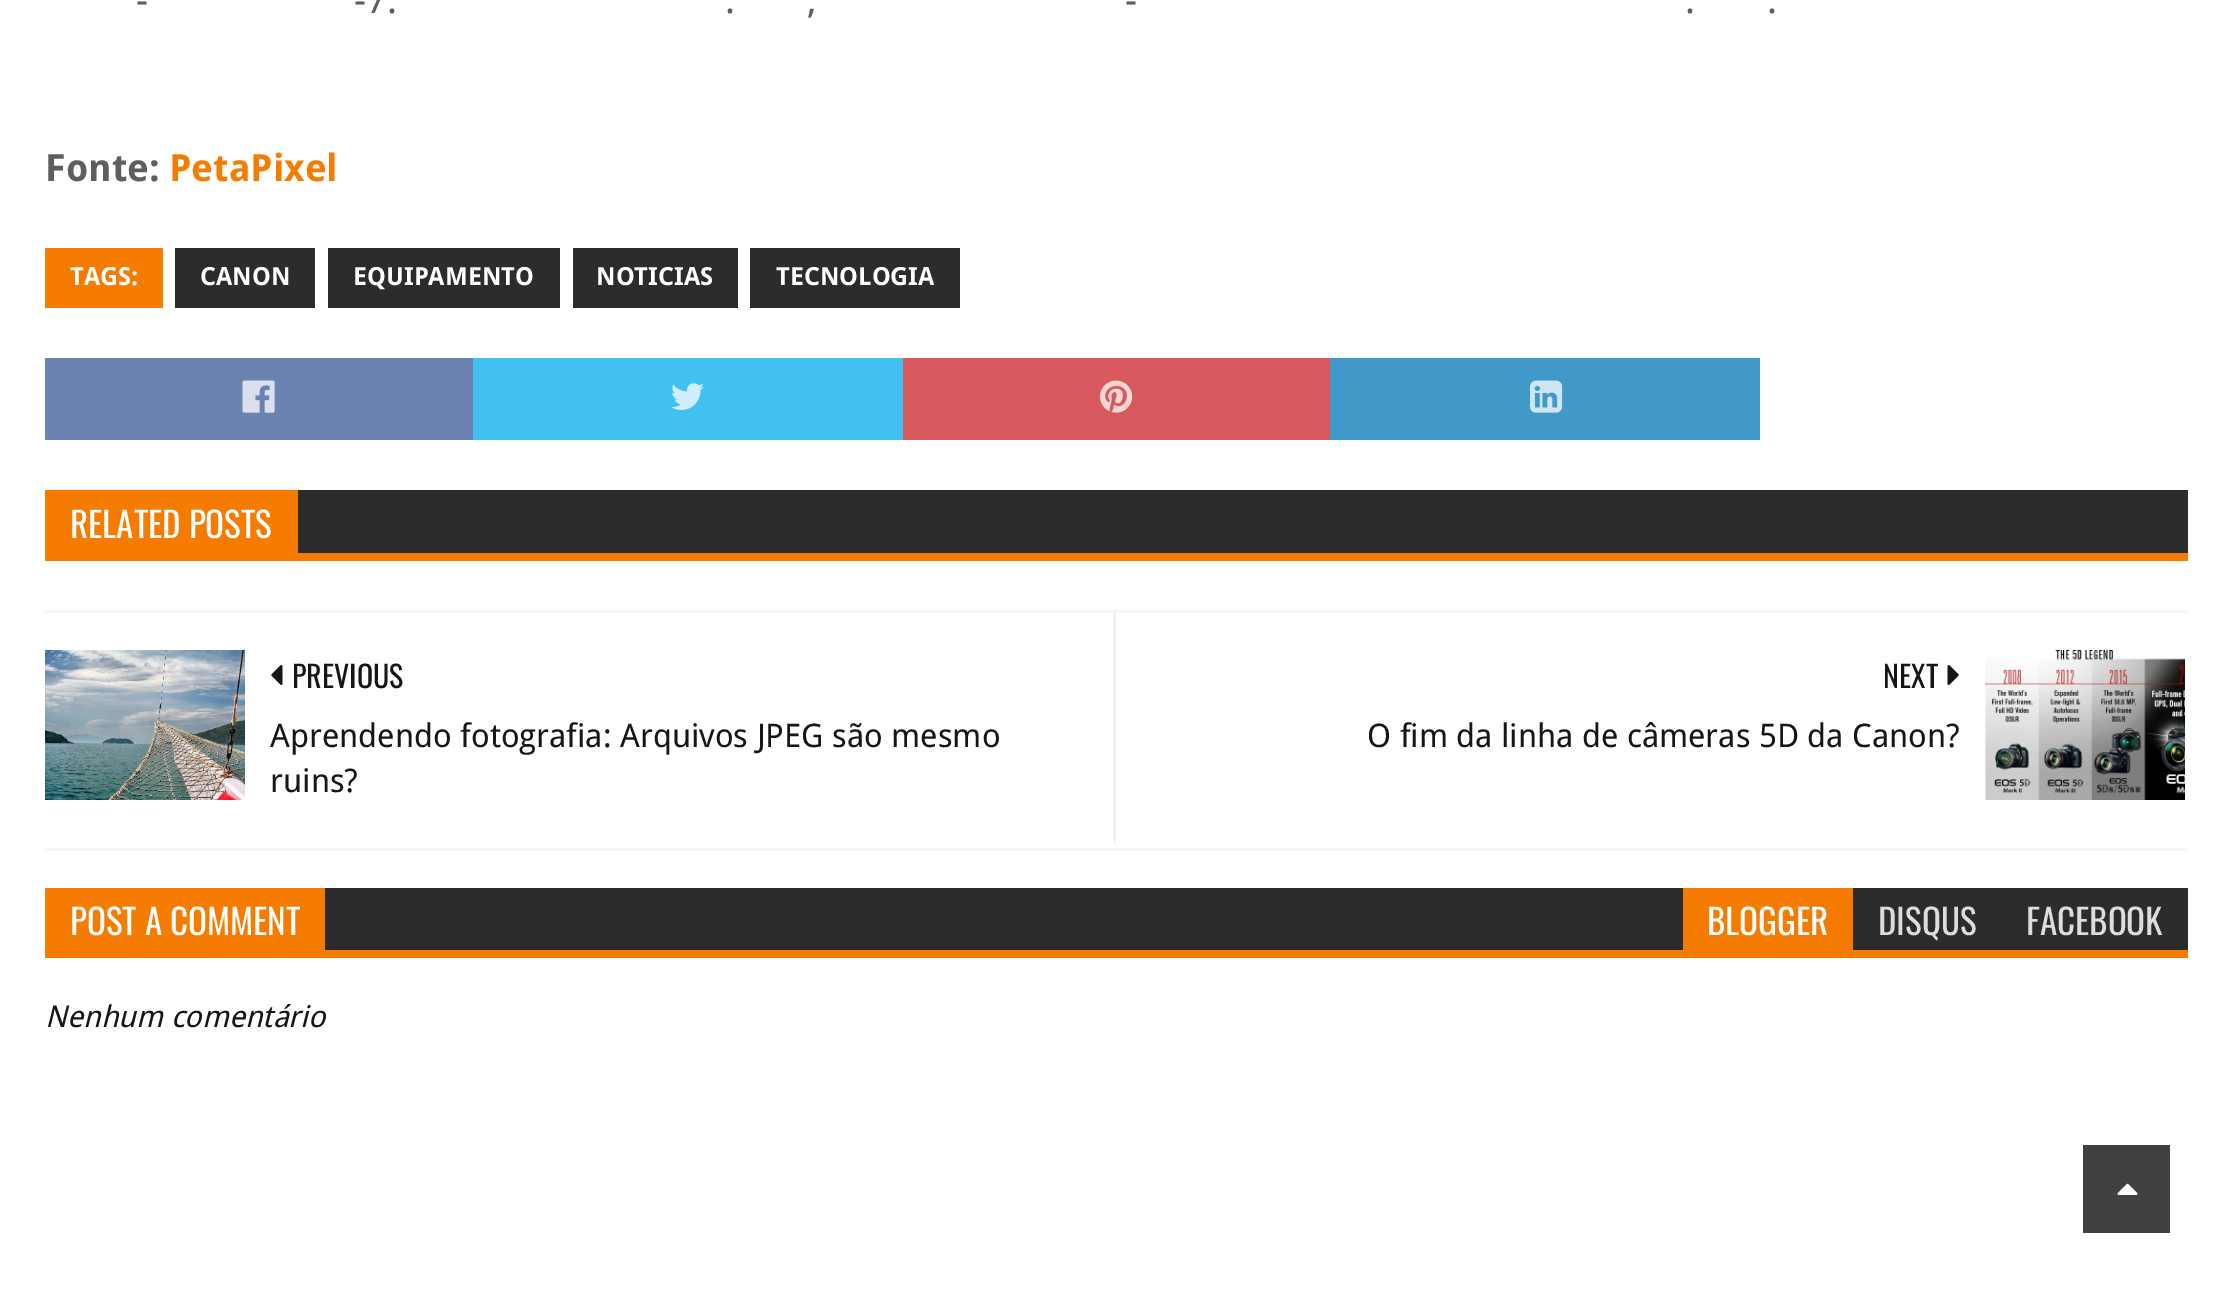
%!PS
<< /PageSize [2232 1294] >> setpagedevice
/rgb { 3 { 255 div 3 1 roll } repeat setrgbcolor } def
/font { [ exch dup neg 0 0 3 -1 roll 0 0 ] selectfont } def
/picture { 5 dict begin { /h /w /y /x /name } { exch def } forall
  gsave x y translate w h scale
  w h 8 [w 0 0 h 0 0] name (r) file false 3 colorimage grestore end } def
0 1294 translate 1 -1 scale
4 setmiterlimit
255 255 255 rgb
0 0 2232 1294 rectfill
[
  [45 248 118 60 245 124 0]
  [175 248 140 60 44 44 44]
  [328 248 232 60 44 44 44]
  [573 248 165 60 44 44 44]
  [750 248 210 60 44 44 44]
  [45 358 428 82 108 131 178]
] { aload pop rgb rectfill } forall
(img/1.rgb) 242 380 33 33 picture
64 193 242 rgb
473 358 430 82 rectfill
(img/2.rgb) 671 383 33 27 picture
215 89 93 rgb
903 358 427 82 rectfill
(img/3.rgb) 1100 380 33 33 picture
64 153 200 rgb
1330 358 430 82 rectfill
(img/4.rgb) 1530 380 33 33 picture
[
  [298 490 1890 63 44 44 44]
  [45 553 2143 8 245 124 0]
  [45 490 253 63 245 124 0]
  [45 610 2143 3 245 245 245]
  [45 848 2143 3 245 245 245]
  [1113 613 3 230 242 242 242]
] { aload pop rgb rectfill } forall
(img/5.rgb) 45 650 200 150 picture
(img/6.rgb) 271 665 12 20 picture
(img/7.rgb) 1947 665 12 20 picture
(img/8.rgb) 1985 650 200 150 picture
[
  [325 888 1863 62 44 44 44]
  [45 950 2143 8 245 124 0]
  [45 888 280 62 245 124 0]
  [1683 888 170 62 245 124 0]
  [2083 1145 87 88 64 64 64]
] { aload pop rgb rectfill } forall
(img/9.rgb) 2117 1183 21 12 picture
/DroidSans-Regular 37.5 font
94 94 94 rgb
[
  [(-) 136 13]
  [(-7.) 354 13]
  [(-) 1125 13]
  [(.) 725 13]
  [(,) 807 13]
  [(.) 1685 13]
  [(.) 1767 13]
] { aload pop moveto show } forall
/DroidSans-Bold 37.5 font
45 181 moveto (Fonte:) show
245 124 0 rgb
169 181 moveto (PetaPixel) show
/DroidSans-Bold 25 font
255 255 255 rgb
[
  [(TAGS:) 70 285]
  [(CANON) 200 285]
  [(EQUIPAMENTO) 353 285]
  [(NOTICIAS) 596 285]
  [(TECNOLOGIA) 776 285]
] { aload pop moveto show } forall
/Oswald-Regular 35 font
70 538 moveto (RELATED POSTS) show
/Oswald-Regular 30 font
22 22 22 rgb
292 688 moveto (PREVIOUS) show
/DroidSans-Regular 32.5 font
270 747 moveto (Aprendendo fotografia: Arquivos JPEG são mesmo) show
270 792 moveto (ruins?) show
/Oswald-Regular 30 font
1883 688 moveto (NEXT) show
/DroidSans-Regular 32.5 font
1367 747 moveto (O fim da linha de câmeras 5D da Canon?) show
/Oswald-Regular 35 font
255 255 255 rgb
70 935 moveto (POST A COMMENT) show
1707 935 moveto (BLOGGER) show
221 221 221 rgb
1878 935 moveto (DISQUS) show
2026 935 moveto (FACEBOOK) show
/DroidSans-Italic 30 font
22 22 22 rgb
45 1027 moveto (Nenhum comentário) show
showpage
